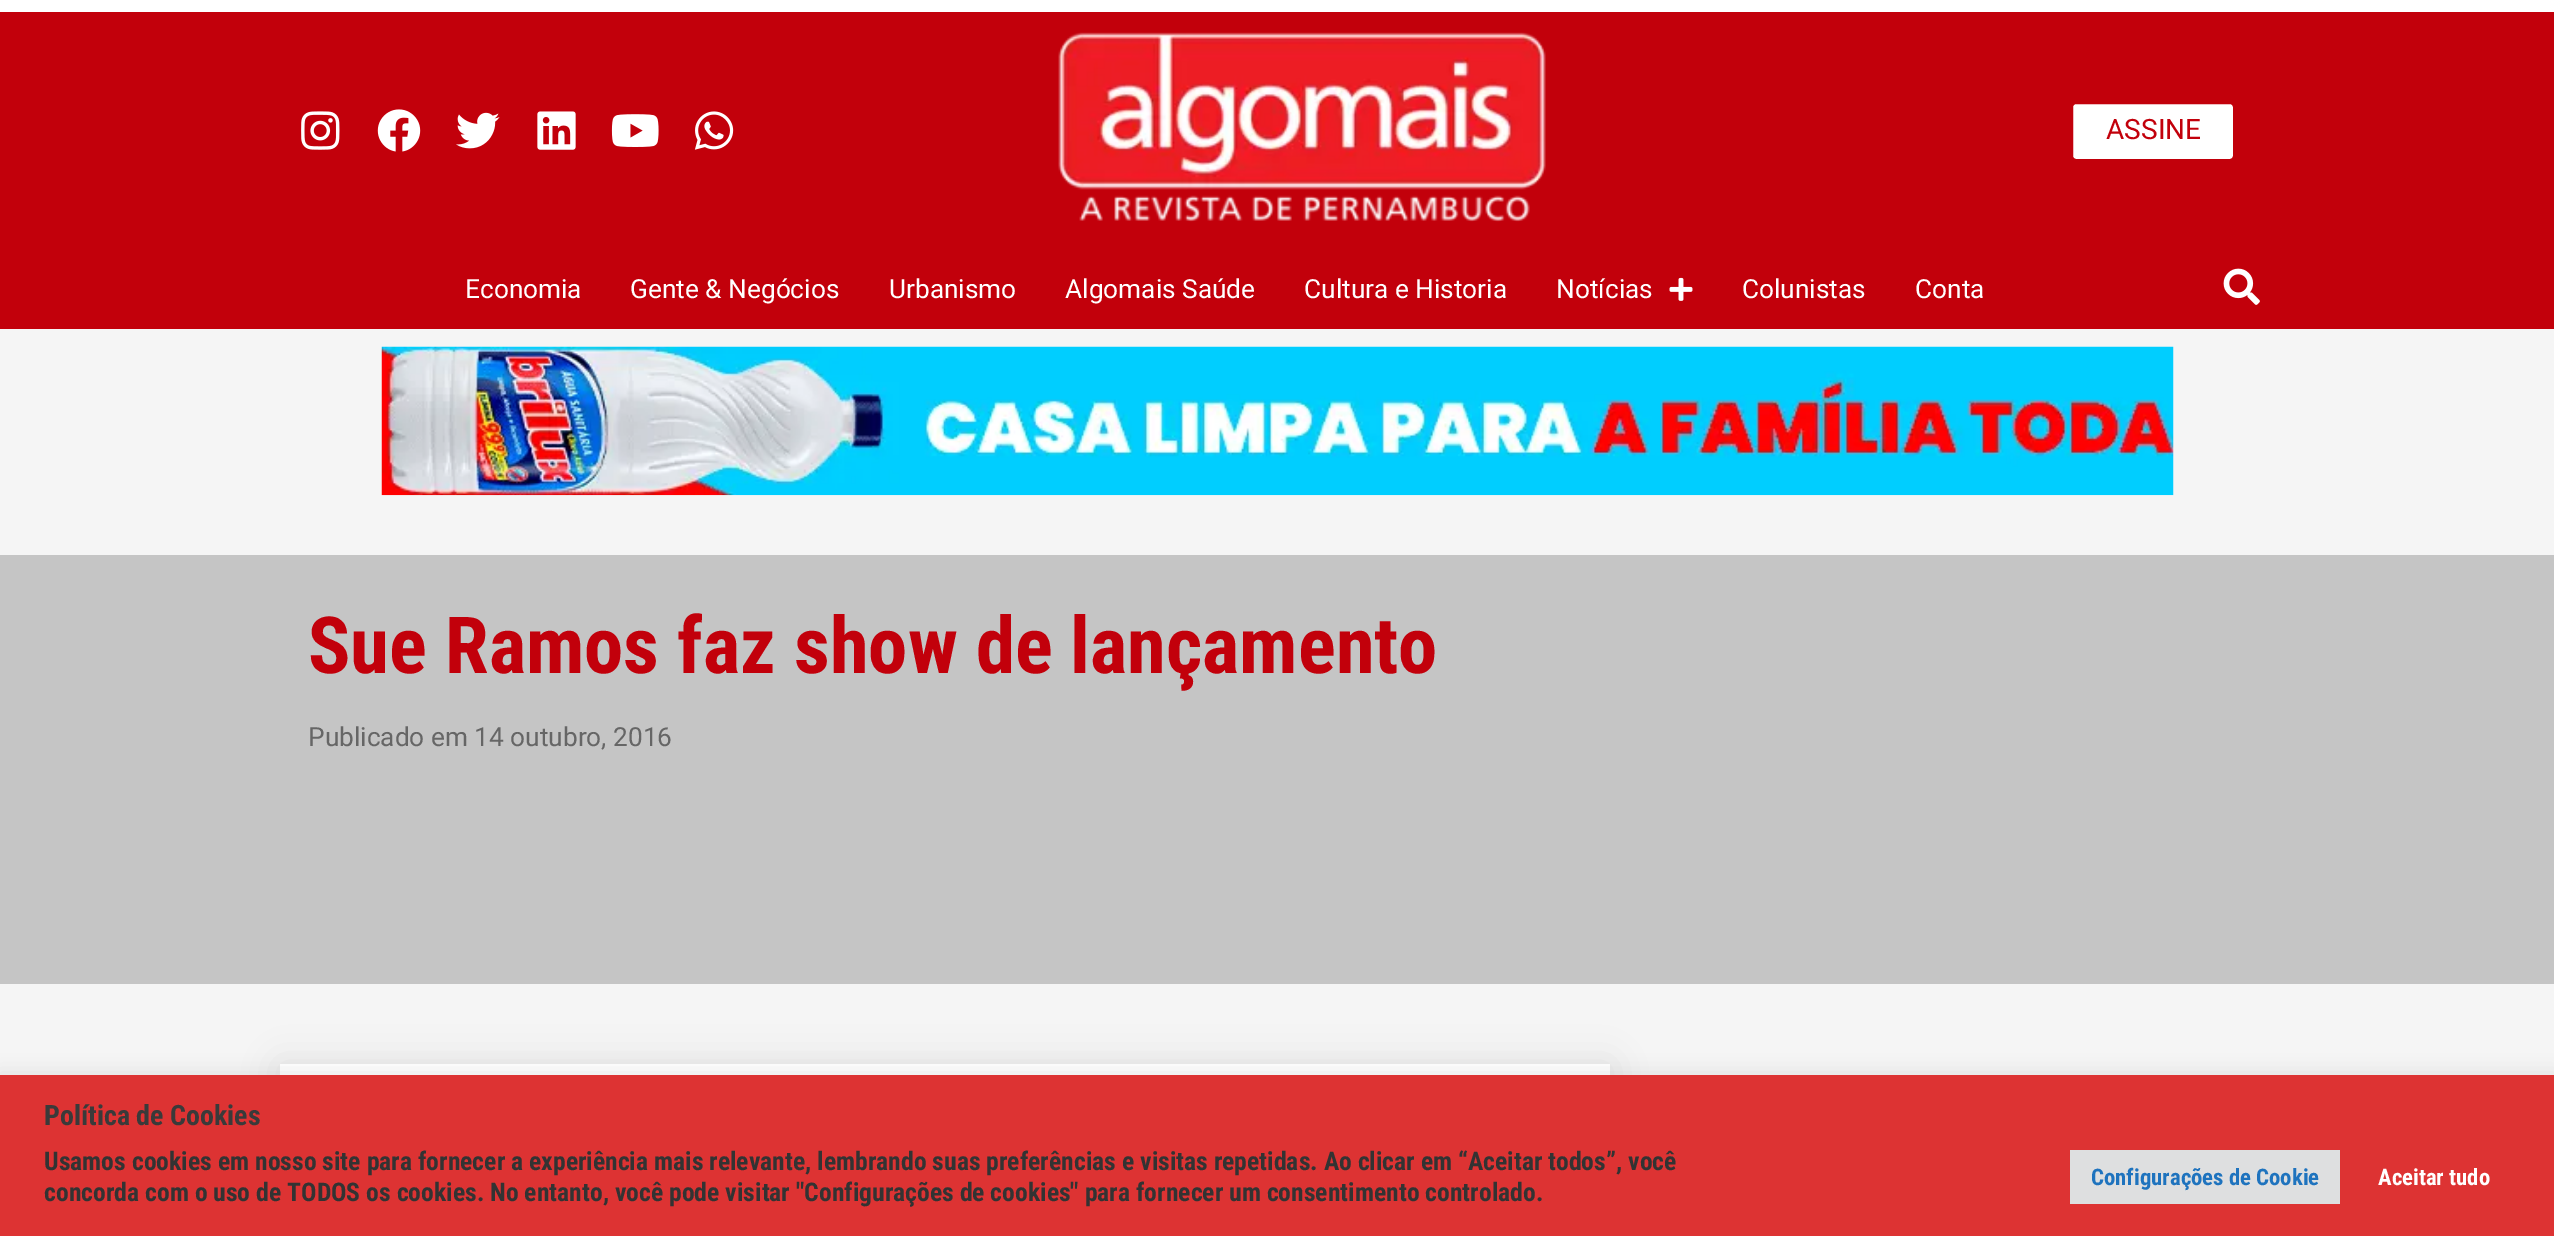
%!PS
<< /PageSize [2554 1236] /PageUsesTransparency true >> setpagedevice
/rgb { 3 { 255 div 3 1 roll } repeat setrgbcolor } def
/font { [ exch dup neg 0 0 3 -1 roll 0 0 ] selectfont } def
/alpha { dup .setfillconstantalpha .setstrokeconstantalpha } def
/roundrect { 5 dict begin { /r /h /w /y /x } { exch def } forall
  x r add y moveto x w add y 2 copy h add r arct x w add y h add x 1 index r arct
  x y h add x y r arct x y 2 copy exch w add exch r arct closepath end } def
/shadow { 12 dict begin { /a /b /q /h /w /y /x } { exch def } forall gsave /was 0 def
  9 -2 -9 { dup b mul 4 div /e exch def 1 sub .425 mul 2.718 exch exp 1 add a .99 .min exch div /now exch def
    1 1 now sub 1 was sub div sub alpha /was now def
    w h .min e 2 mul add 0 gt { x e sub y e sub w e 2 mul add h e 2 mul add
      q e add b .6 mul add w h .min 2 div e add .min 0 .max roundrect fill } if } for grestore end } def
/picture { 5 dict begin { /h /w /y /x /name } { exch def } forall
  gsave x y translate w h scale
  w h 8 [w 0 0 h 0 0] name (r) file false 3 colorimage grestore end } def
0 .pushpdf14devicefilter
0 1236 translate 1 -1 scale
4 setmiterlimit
245 245 245 rgb
0 0 2554 1236 rectfill
255 255 255 rgb
0 0 2554 12 rectfill
194 0 11 rgb
0 12 2554 317 rectfill
(img/1.rgb) 301 111 39 39 picture
(img/2.rgb) 377 109 44 43 picture
(img/3.rgb) 456 112 44 37 picture
(img/4.rgb) 537 111 39 39 picture
(img/5.rgb) 611 114 48 33 picture
(img/6.rgb) 694 111 40 39 picture
(img/7.rgb) 1058 32 488 190 picture
255 255 255 rgb
2071 102 164 59 5 roundrect gsave fill grestore
194 0 11 rgb
4 setlinewidth
stroke
(img/8.rgb) 1669 277 24 24 picture
(img/9.rgb) 2223 268 37 37 picture
(img/10.rgb) 381 346 1793 150 picture
197 197 197 rgb
0 555 2554 429 rectfill
0 0 0 rgb
280 1064 1330 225 0 17.5 0.09 shadow
255 255 255 rgb
280 1064 1330 11 rectfill
172 171 171 rgb
0 1073 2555 163 0 9 0.3 shadow
221 51 51 rgb
0 1075 2554 161 rectfill
222 223 224 rgb
2070 1150 270 54 rectfill
/Roboto-Regular 28 font
194 0 11 rgb
2106 139 moveto (ASSINE) show
/Roboto-Regular 26.25 font
255 255 255 rgb
[
  [(Economia) 465 298]
  [(Gente & Negócios) 630 298]
  [(Urbanismo) 889 298]
  [(Algomais Saúde) 1065 298]
  [(Cultura e Historia) 1304 298]
  [(Notícias) 1556 298]
  [(Colunistas) 1742 298]
  [(Conta) 1915 298]
] { aload pop moveto show } forall
/RobotoCondensed-Bold 78.75 font
194 0 11 rgb
308 673 moveto (Sue Ramos faz show de lançamento) show
/Roboto-Regular 26.25 font
102 102 102 rgb
308 746 moveto (Publicado em 14 outubro, 2016) show
/RobotoCondensed-Bold 28 font
58 58 58 rgb
44 1125 moveto (Política de Cookies) show
/RobotoCondensed-Bold 25.67 font
51 51 51 rgb
44 1170 moveto (Usamos cookies em nosso site para fornecer a experiência mais relevante, lembrando suas preferências e visitas repetidas. Ao clicar em “Aceitar todos”, você) show
44 1201 moveto (concorda com o uso de TODOS os cookies. No entanto, você pode visitar "Configurações de cookies" para fornecer um consentimento controlado.) show
/RobotoCondensed-Bold 22.75 font
30 115 190 rgb
2091 1185 moveto (Configurações de Cookie) show
255 255 255 rgb
2378 1185 moveto (Aceitar tudo) show
.poppdf14devicefilter showpage
